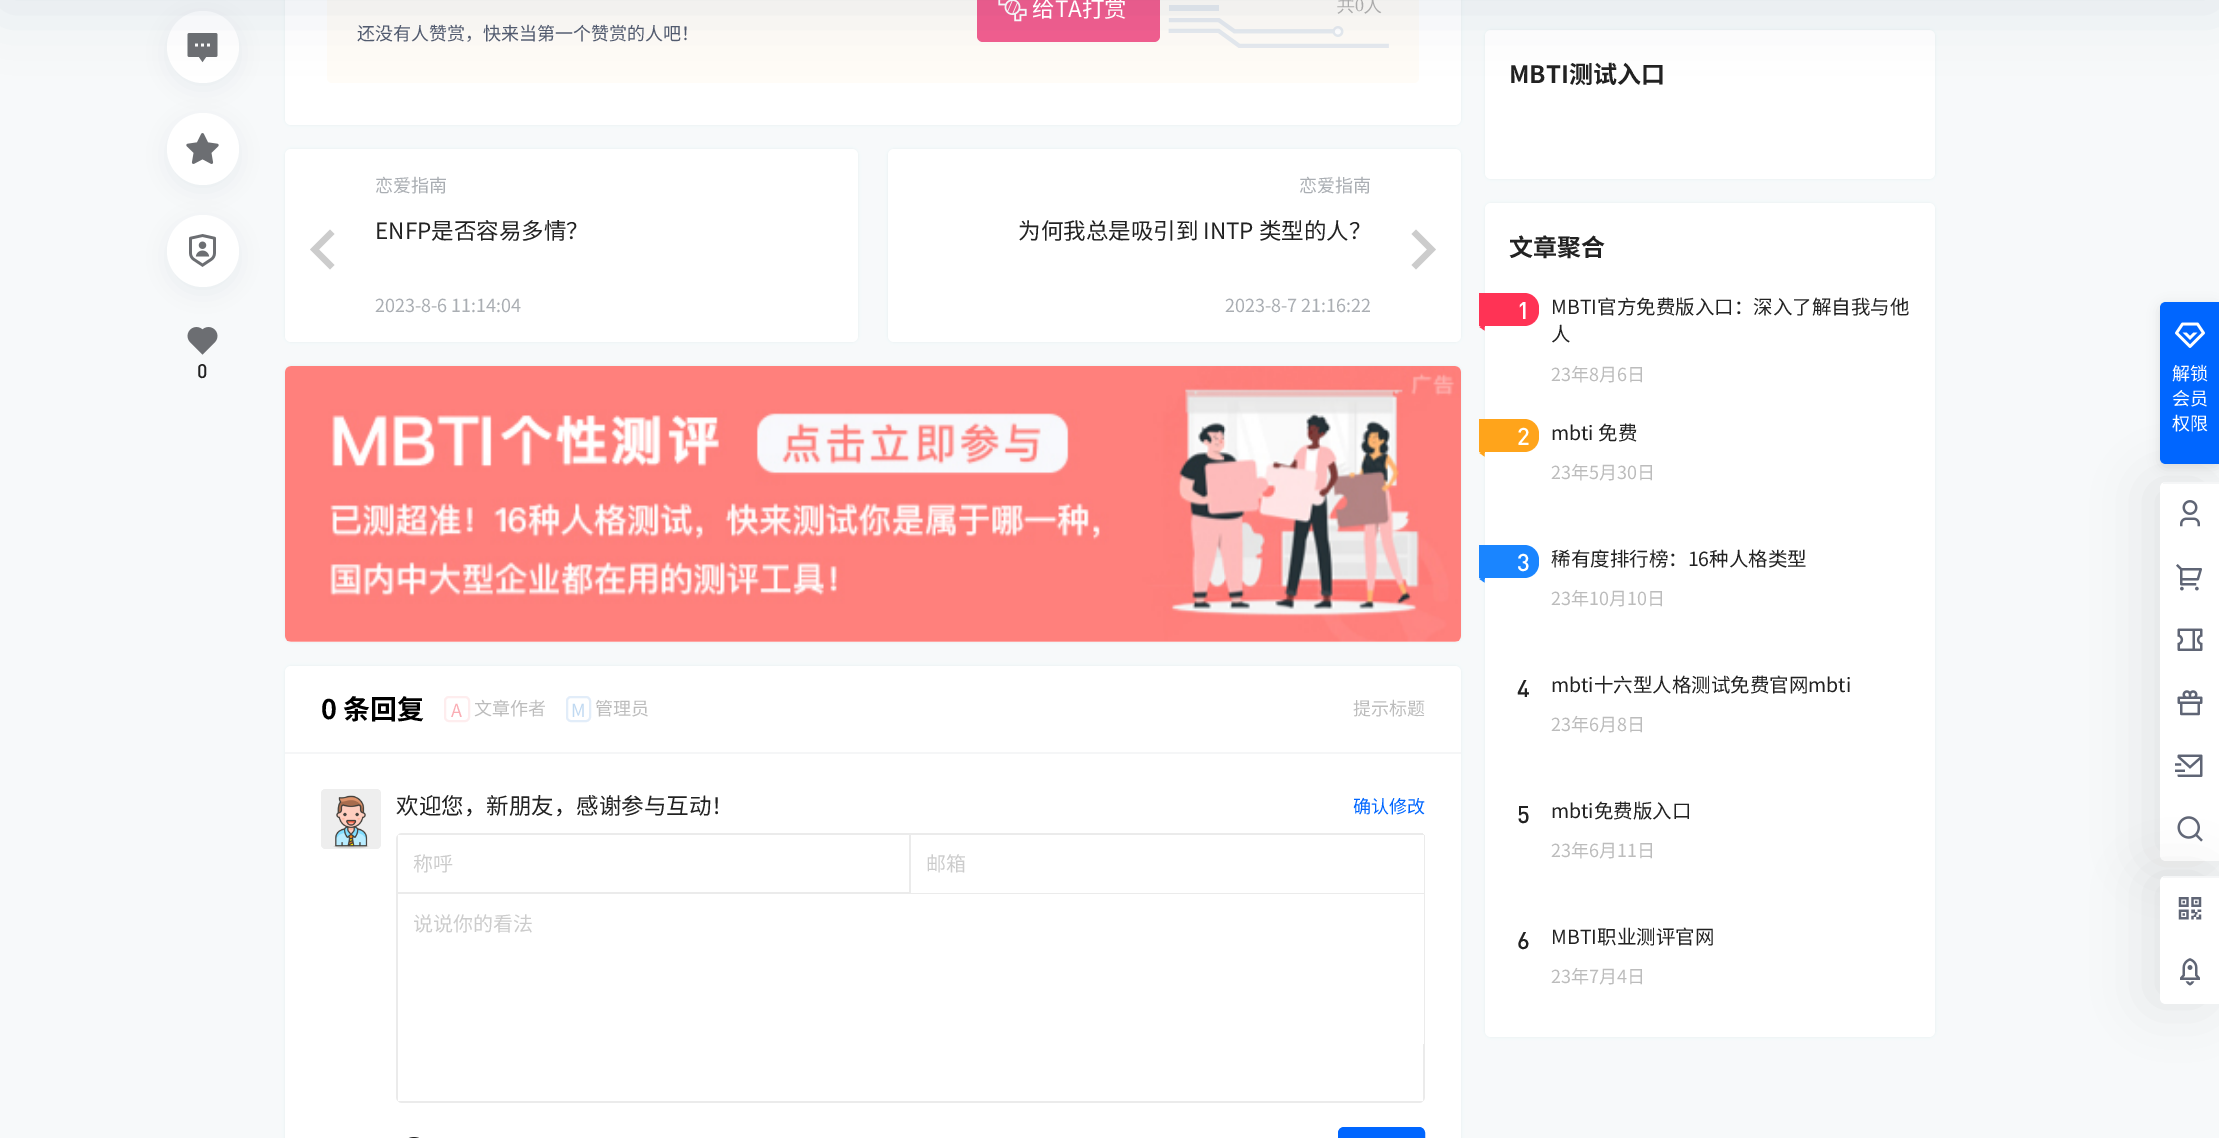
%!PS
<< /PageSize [2219 1138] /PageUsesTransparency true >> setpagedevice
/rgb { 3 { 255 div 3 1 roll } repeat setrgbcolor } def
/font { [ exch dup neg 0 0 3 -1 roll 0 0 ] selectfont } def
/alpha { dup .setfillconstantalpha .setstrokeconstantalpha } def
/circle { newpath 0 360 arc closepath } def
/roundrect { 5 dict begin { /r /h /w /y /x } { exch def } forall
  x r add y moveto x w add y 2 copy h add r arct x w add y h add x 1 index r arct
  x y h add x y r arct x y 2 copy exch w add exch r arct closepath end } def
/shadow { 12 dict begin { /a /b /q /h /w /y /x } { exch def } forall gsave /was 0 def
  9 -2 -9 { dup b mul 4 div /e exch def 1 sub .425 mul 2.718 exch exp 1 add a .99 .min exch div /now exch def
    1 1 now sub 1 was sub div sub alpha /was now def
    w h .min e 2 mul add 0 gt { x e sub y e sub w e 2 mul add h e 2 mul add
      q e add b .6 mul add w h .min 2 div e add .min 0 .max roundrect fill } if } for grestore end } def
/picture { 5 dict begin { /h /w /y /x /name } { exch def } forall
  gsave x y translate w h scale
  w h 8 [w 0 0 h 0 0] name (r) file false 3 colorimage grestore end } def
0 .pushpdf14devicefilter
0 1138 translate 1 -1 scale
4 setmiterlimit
247 249 250 rgb
0 0 2219 1138 rectfill
98 124 153 rgb
285 -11 1176 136 6 1.5 0.1 shadow
255 255 255 rgb
285 -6 1176 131 6 roundrect fill
255 252 247 rgb
327 -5 1092 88 5 roundrect fill
242 93 142 rgb
977 -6 183 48 6 roundrect fill
(img/1.rgb) 998 0 29 22 picture
(img/2.rgb) 1168 5 221 43 picture
13 39 91 rgb
167 17 72 72 36 12 0.06 shadow
255 255 255 rgb
203 47 36 circle fill
(img/3.rgb) 187 33 31 30 picture
98 124 153 rgb
1485 30 450 149 6 1.5 0.1 shadow
255 255 255 rgb
1485 30 450 149 6 roundrect fill
17 58 93 rgb
0 -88 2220 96 0 30 0.1 shadow
13 39 91 rgb
167 119 72 72 36 12 0.06 shadow
255 255 255 rgb
203 149 36 circle fill
(img/4.rgb) 186 133 33 31 picture
(img/6.rgb) 187 327 31 28 picture
13 39 91 rgb
167 221 72 72 36 12 0.06 shadow
255 255 255 rgb
203 251 36 circle fill
(img/5.rgb) 189 234 27 33 picture
98 124 153 rgb
285 149 573 193 6 1.5 0.1 shadow
255 255 255 rgb
285 149 573 193 6 roundrect fill
204 204 204 rgb
319 249.5 moveto 334.5 265 lineto 330 269.5 lineto 310 249.5 lineto 330 229.5 lineto 334.5 234 lineto closepath fill
98 124 153 rgb
888 149 573 193 6 1.5 0.1 shadow
255 255 255 rgb
888 149 573 193 6 roundrect fill
204 204 204 rgb
1427 249.5 moveto 1411.5 234 lineto 1416 229.5 lineto 1436 249.5 lineto 1416 269.5 lineto 1411.5 265 lineto closepath fill
98 124 153 rgb
285 366 1176 276 6 1.5 0.1 shadow
255 255 255 rgb
285 366 1176 276 6 roundrect fill
(img/7.rgb) 285 366 1176 276 picture
98 124 153 rgb
285 666 1176 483 6 1.5 0.1 shadow
255 255 255 rgb
285 666 1176 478 6 roundrect fill
245 246 247 rgb
285 752 1176 2 rectfill
254 237 238 rgb
2 setlinewidth
445 697 24 24 4 roundrect stroke
226 237 249 rgb
567 697 23 24 4 roundrect stroke
(img/8.rgb) 321 789 60 60 picture
235 235 235 rgb
402 833 moveto 399 833 396 836 396 839 curveto 396 894 lineto 911 894 lineto 911 833 lineto closepath 398 835 moveto 398 892 lineto 909 892 lineto 909 835 lineto closepath eofill
gsave
396 833 1029 270 6 roundrect clip newpath
911 833 514 2 rectfill
1424 833 1 61 rectfill
grestore
396 893 moveto 396 1097 lineto 396 1100 399 1103 402 1103 curveto 1419 1103 lineto 1422 1103 1425 1100 1425 1097 curveto 1425 893 lineto closepath 398 895 moveto 398 1101 lineto 1423 1101 lineto 1423 895 lineto closepath eofill
255 255 255 rgb
398 894 1026 150 rectfill
(img/9.rgb) 408 1137 11 1 picture
0 102 255 rgb
1339 1128 85 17 5 roundrect gsave fill grestore
stroke
98 124 153 rgb
1485 203 450 834 6 1.5 0.1 shadow
255 255 255 rgb
1485 203 450 834 6 roundrect fill
255 51 85 rgb
1479 293 moveto 1524 293 lineto 1532.5 293 1539 299.5 1539 308 curveto 1539 311 lineto 1539 319.5 1532.5 326 1524 326 curveto 1479 326 lineto closepath fill
1484.5 330.5 moveto 1479.5 327 lineto 1485 323.5 lineto closepath fill
255 164 27 rgb
1479 419 moveto 1524 419 lineto 1532.5 419 1539 425.5 1539 434 curveto 1539 437 lineto 1539 445.5 1532.5 452 1524 452 curveto 1479 452 lineto closepath fill
1484.5 456.5 moveto 1479.5 453 lineto 1485 449.5 lineto closepath fill
26 133 255 rgb
1479 545 moveto 1524 545 lineto 1532.5 545 1539 551.5 1539 560 curveto 1539 563 lineto 1539 571.5 1532.5 578 1524 578 curveto 1479 578 lineto closepath fill
1484.5 582.5 moveto 1479.5 579 lineto 1485 575.5 lineto closepath fill
181 181 181 rgb
2148 482 60 379 6 26 0.32 shadow
255 255 255 rgb
2166 482 moveto 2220 482 lineto 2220 861 lineto 2166 861 lineto 2162.5 861 2160 858.5 2160 855 curveto 2160 488 lineto 2160 484.5 2162.5 482 2166 482 curveto closepath fill
245 246 247 rgb
2163 482 56 2 rectfill
0 0 0 rgb
2160 305 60 162 6 6 0.1 shadow
0 102 255 rgb
2166 302 moveto 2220 302 lineto 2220 464 lineto 2166 464 lineto 2162.5 464 2160 461.5 2160 458 curveto 2160 308 lineto 2160 304.5 2162.5 302 2166 302 curveto closepath fill
(img/10.rgb) 2175 322 30 26 picture
(img/11.rgb) 2180 500 20 27 picture
(img/12.rgb) 2176 564 26 27 picture
(img/13.rgb) 2177 628 26 23 picture
(img/14.rgb) 2177 690 26 26 picture
(img/15.rgb) 2175 754 28 23 picture
(img/16.rgb) 2177 816 26 26 picture
181 181 181 rgb
2148 876 60 128 6 26 0.32 shadow
255 255 255 rgb
2166 876 moveto 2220 876 lineto 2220 1004 lineto 2166 1004 lineto 2162.5 1004 2160 1001.5 2160 998 curveto 2160 882 lineto 2160 878.5 2162.5 876 2166 876 curveto closepath fill
245 246 247 rgb
2163 876 56 2 rectfill
(img/17.rgb) 2178 897 24 23 picture
(img/18.rgb) 2180 958 20 28 picture
/NotoSansCJKSC-Regular 22.5 font
255 255 255 rgb
1032 17 moveto (给TA打赏) show
/WenQuanYiZenHei-Medium 18 font
170 170 170 rgb
1337 11 moveto (共) show
/LiberationSerif-Regular 18 font
1355 11 moveto (0) show
/WenQuanYiZenHei-Medium 18 font
1364 11 moveto (人) show
/NotoSansCJKSC-Regular 18 font
81 90 110 rgb
357 40 moveto (还没有人赞赏，快来当第一个赞赏的人吧！) show
/DIN-Medium 19.5 font
34 34 34 rgb
197 378 moveto (0) show
/NotoSansCJKSC-Regular 18 font
170 174 179 rgb
375 192 moveto (恋爱指南) show
/NotoSansCJKSC-Regular 22.5 font
34 34 34 rgb
375 239 moveto (ENFP是否容易多情？) show
/NotoSansCJKSC-Regular 18 font
170 174 179 rgb
375 312 moveto (2023-8-6 11:14:04) show
1299 192 moveto (恋爱指南) show
/NotoSansCJKSC-Regular 22.5 font
34 34 34 rgb
1018 239 moveto (为何我总是吸引到 INTP 类型的人？) show
/NotoSansCJKSC-Regular 18 font
170 174 179 rgb
1225 312 moveto (2023-8-7 21:16:22) show
/NotoSansCJKSC-Bold 27 font
0 0 0 rgb
321 719 moveto (0 条回复) show
/NotoSansCJKSC-Regular 18 font
250 173 180 rgb
451 717 moveto (A) show
188 188 188 rgb
474 715 moveto (文章作者) show
192 217 241 rgb
571 717 moveto (M) show
188 188 188 rgb
595 715 moveto (管理员) show
1353 715 moveto (提示标题) show
/NotoSansCJKSC-Regular 22.5 font
34 34 34 rgb
396 814 moveto (欢迎您，新朋友，感谢参与互动！) show
/NotoSansCJKSC-Regular 18 font
0 102 255 rgb
1353 813 moveto (确认修改) show
/NotoSansCJKSC-Regular 20 font
204 204 204 rgb
[
  [(称呼) 413 871]
  [(邮箱) 926 871]
  [(说说你的看法) 413 931]
] { aload pop moveto show } forall
/NotoSansCJKSC-Bold 24 font
34 34 34 rgb
1509 83 moveto (MBTI测试入口) show
1509 256 moveto (文章聚合) show
/DIN-Medium 24 font
255 255 255 rgb
1517 319 moveto (1) show
/NotoSansCJKSC-Regular 19.5 font
34 34 34 rgb
1551 314 moveto (MBTI官方免费版入口：深入了解自我与他) show
1551 341 moveto (人) show
/NotoSansCJKSC-Regular 18 font
188 188 188 rgb
1551 381 moveto (23年8月6日) show
/DIN-Medium 24 font
255 255 255 rgb
1517 445 moveto (2) show
/NotoSansCJKSC-Regular 19.5 font
34 34 34 rgb
1551 440 moveto (mbti 免费) show
/NotoSansCJKSC-Regular 18 font
188 188 188 rgb
1551 479 moveto (23年5月30日) show
/DIN-Medium 24 font
255 255 255 rgb
1517 571 moveto (3) show
/NotoSansCJKSC-Regular 19.5 font
34 34 34 rgb
1551 566 moveto (稀有度排行榜：16种人格类型) show
/NotoSansCJKSC-Regular 18 font
188 188 188 rgb
1551 605 moveto (23年10月10日) show
/DIN-Medium 24 font
34 34 34 rgb
1517 697 moveto (4) show
/NotoSansCJKSC-Regular 19.5 font
1551 692 moveto (mbti十六型人格测试免费官网mbti) show
/NotoSansCJKSC-Regular 18 font
188 188 188 rgb
1551 731 moveto (23年6月8日) show
/DIN-Medium 24 font
34 34 34 rgb
1517 823 moveto (5) show
/NotoSansCJKSC-Regular 19.5 font
1551 818 moveto (mbti免费版入口) show
/NotoSansCJKSC-Regular 18 font
188 188 188 rgb
1551 857 moveto (23年6月11日) show
/DIN-Medium 24 font
34 34 34 rgb
1517 949 moveto (6) show
/NotoSansCJKSC-Regular 19.5 font
1551 944 moveto (MBTI职业测评官网) show
/NotoSansCJKSC-Regular 18 font
188 188 188 rgb
1551 983 moveto (23年7月4日) show
255 255 255 rgb
[
  [(解锁) 2172 380]
  [(会员) 2172 405]
  [(权限) 2172 430]
] { aload pop moveto show } forall
.poppdf14devicefilter showpage
